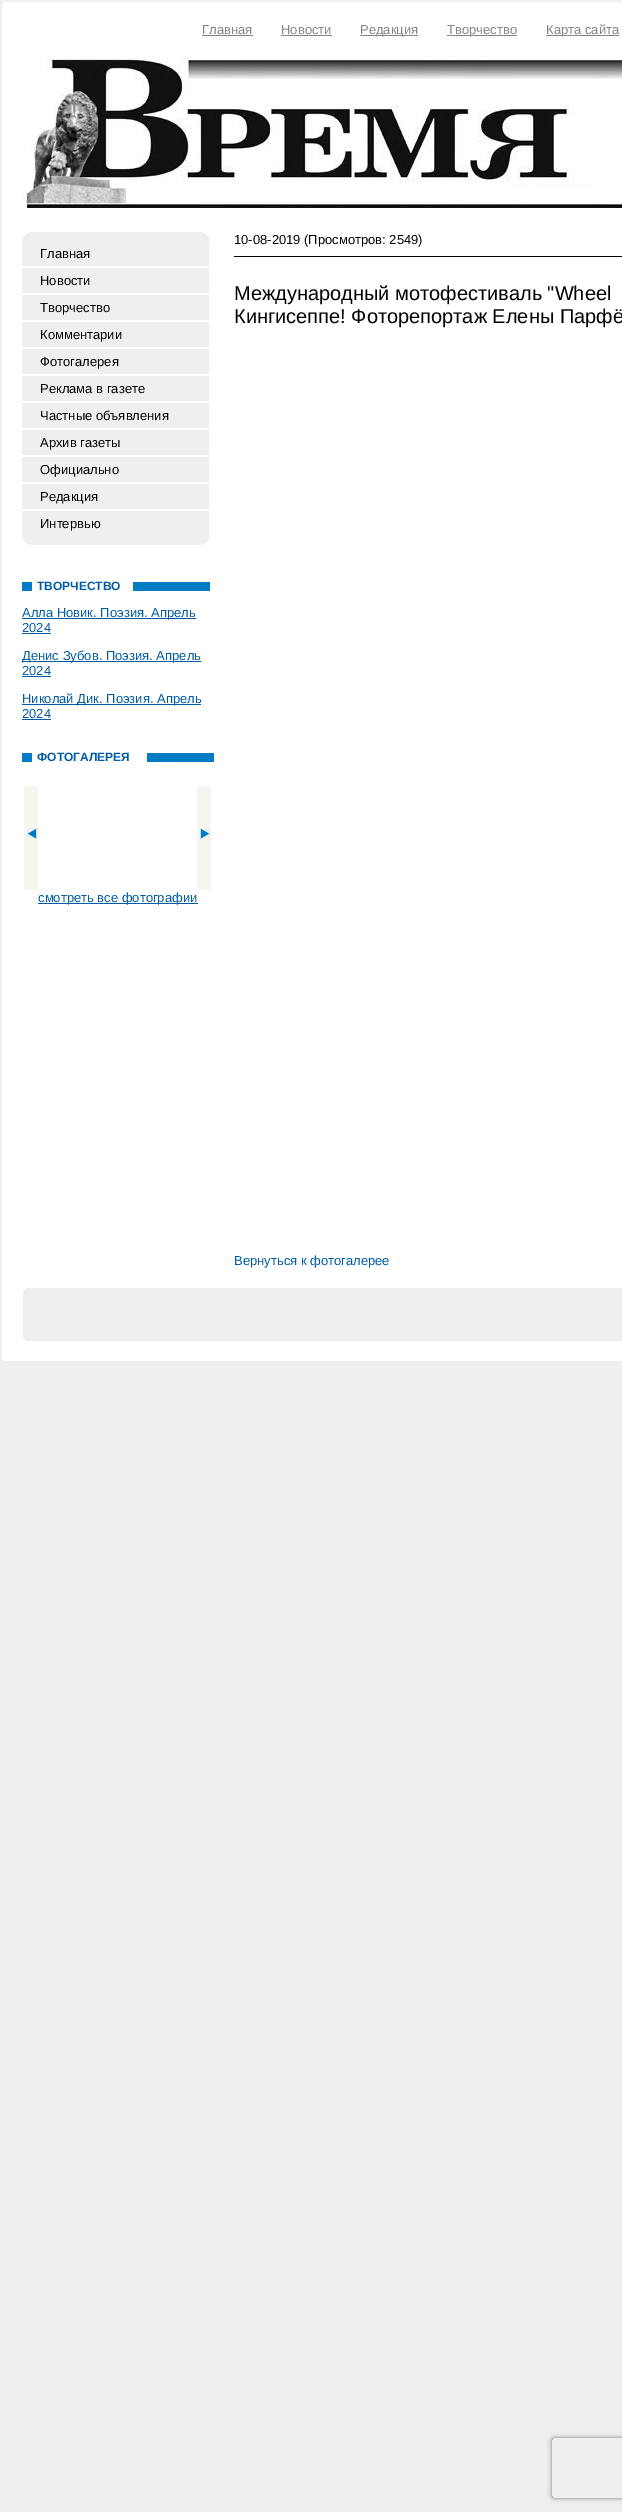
%!PS
<< /PageSize [622 2512] /PageUsesTransparency true >> setpagedevice
/rgb { 3 { 255 div 3 1 roll } repeat setrgbcolor } def
/font { [ exch dup neg 0 0 3 -1 roll 0 0 ] selectfont } def
/alpha { dup .setfillconstantalpha .setstrokeconstantalpha } def
/roundrect { 5 dict begin { /r /h /w /y /x } { exch def } forall
  x r add y moveto x w add y 2 copy h add r arct x w add y h add x 1 index r arct
  x y h add x y r arct x y 2 copy exch w add exch r arct closepath end } def
/shadow { 12 dict begin { /a /b /q /h /w /y /x } { exch def } forall gsave /was 0 def
  9 -2 -9 { dup b mul 4 div /e exch def 1 sub .425 mul 2.718 exch exp 1 add a .99 .min exch div /now exch def
    1 1 now sub 1 was sub div sub alpha /was now def
    w h .min e 2 mul add 0 gt { x e sub y e sub w e 2 mul add h e 2 mul add
      q e add b .6 mul add w h .min 2 div e add .min 0 .max roundrect fill } if } for grestore end } def
/picture { 5 dict begin { /h /w /y /x /name } { exch def } forall
  gsave x y translate w h scale
  w h 8 [w 0 0 h 0 0] name (r) file false 3 colorimage grestore end } def
0 .pushpdf14devicefilter
0 2512 translate 1 -1 scale
4 setmiterlimit
239 239 239 rgb
0 0 622 2512 rectfill
255 255 255 rgb
1 1 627 1361 4 roundrect gsave fill grestore
239 239 239 rgb
2 setlinewidth
stroke
[
  [202 35 51 1 133 133 133]
  [281 35 51 1 133 133 133]
  [360 35 58 1 133 133 133]
  [447 35 70 1 133 133 133]
  [546 35 73 1 133 133 133]
] { aload pop rgb rectfill } forall
(img/1.rgb) 22 55 600 153 picture
(img/2.rgb) 22 232 188 9 picture
(img/3.rgb) 22 536 188 9 picture
[
  [22 241 187 25 239 239 239]
  [22 268 187 25 239 239 239]
  [22 295 187 25 239 239 239]
  [22 322 187 25 239 239 239]
  [22 349 187 25 239 239 239]
  [22 376 187 25 239 239 239]
  [22 403 187 25 239 239 239]
  [22 430 187 25 239 239 239]
  [22 457 187 25 239 239 239]
  [22 484 187 25 239 239 239]
  [22 511 187 25 239 239 239]
  [22 582 188 9 0 124 197]
  [32 582 101 9 255 255 255]
  [22 618 174 1 0 92 164]
  [22 633 29 1 0 92 164]
  [22 661 179 1 0 92 164]
  [22 676 29 1 0 92 164]
  [22 704 179 1 0 92 164]
  [22 719 29 1 0 92 164]
  [22 753 192 9 0 124 197]
  [32 753 115 9 255 255 255]
  [24 786 14 104 245 245 242]
] { aload pop rgb rectfill } forall
(img/4.rgb) 27 828 10 11 picture
197 786 14 104 rectfill
(img/5.rgb) 200 828 10 11 picture
0 92 164 rgb
38 903 160 1 rectfill
0 0 0 rgb
234 256 388 1 rectfill
239 239 239 rgb
23 1288 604 53 5 roundrect fill
gsave
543 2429 moveto 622 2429 lineto 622 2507 lineto 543 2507 lineto closepath 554 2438 moveto 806 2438 lineto 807 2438 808 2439 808 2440 curveto 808 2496 lineto 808 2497 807 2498 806 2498 curveto 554 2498 lineto 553 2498 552 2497 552 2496 curveto 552 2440 lineto 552 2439 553 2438 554 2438 curveto closepath eoclip newpath
128 128 128 rgb
552 2438 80 60 2 2.5 1 shadow
grestore
/LiberationSans-Regular 13 font
133 133 133 rgb
[
  [(Главная) 202 34]
  [(Новости) 281 34]
  [(Редакция) 360 34]
  [(Творчество) 447 34]
  [(Карта сайта) 546 34]
] { aload pop moveto show } forall
0 0 0 rgb
[
  [(Главная) 40 258]
  [(Новости) 40 285]
  [(Творчество) 40 312]
  [(Комментарии) 40 339]
  [(Фотогалерея) 40 366]
  [(Реклама в газете) 40 393]
  [(Частные объявления) 40 420]
  [(Архив газеты) 40 447]
  [(Официально) 40 474]
  [(Редакция) 40 501]
  [(Интервью) 40 528]
] { aload pop moveto show } forall
/LiberationSans-Bold 12 font
0 92 164 rgb
37 590 moveto (ТВОРЧЕСТВО) show
/LiberationSans-Regular 13 font
[
  [(Алла Новик. Поэзия. Апрель) 22 617]
  [(2024) 22 632]
  [(Денис Зубов. Поэзия. Апрель) 22 660]
  [(2024) 22 675]
  [(Николай Дик. Поэзия. Апрель) 22 703]
  [(2024) 22 718]
] { aload pop moveto show } forall
/LiberationSans-Bold 12 font
37 761 moveto (ФОТОГАЛЕРЕЯ) show
/LiberationSans-Regular 13 font
38 902 moveto (смотреть все фотографии) show
0 0 0 rgb
234 244 moveto (10-08-2019 \(Просмотров: 2549\)) show
/LiberationSans-Regular 20 font
234 300 moveto (Международный мотофестиваль "Wheel) show
234 323 moveto (Кингисеппе! Фоторепортаж Елены Парфё) show
/LiberationSans-Regular 13 font
0 92 164 rgb
234 1265 moveto (Вернуться к фотогалерее) show
.poppdf14devicefilter showpage
